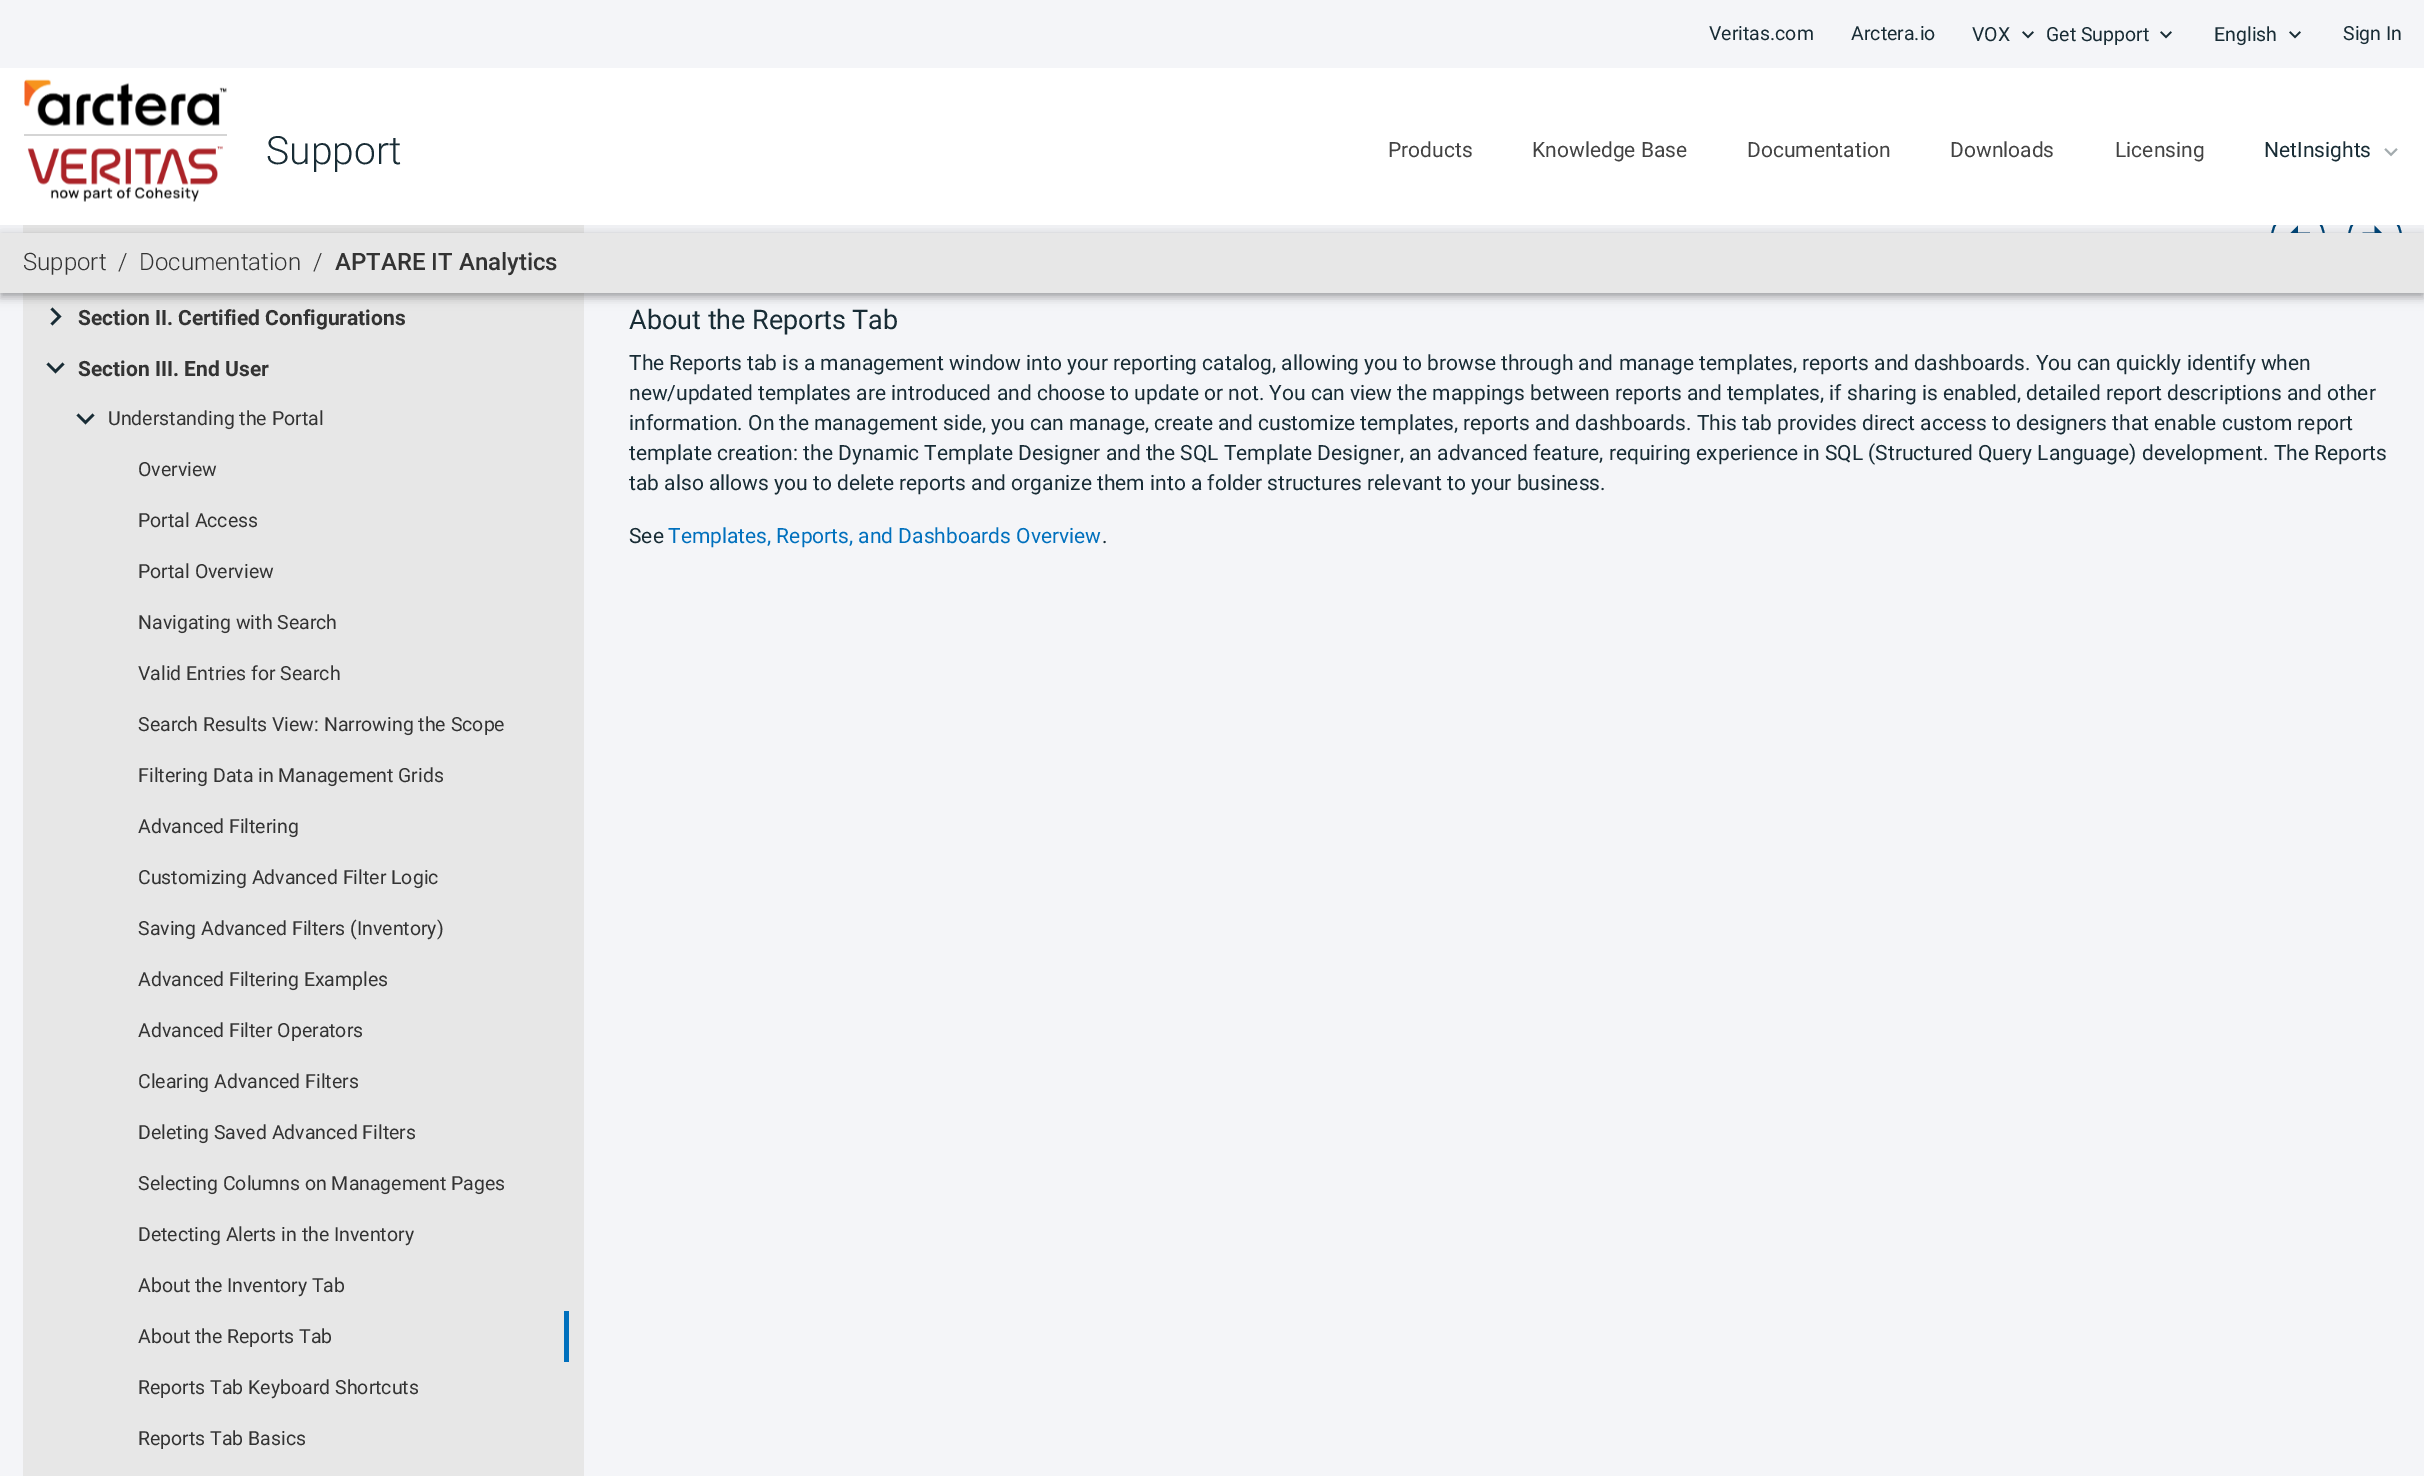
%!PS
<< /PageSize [2424 1476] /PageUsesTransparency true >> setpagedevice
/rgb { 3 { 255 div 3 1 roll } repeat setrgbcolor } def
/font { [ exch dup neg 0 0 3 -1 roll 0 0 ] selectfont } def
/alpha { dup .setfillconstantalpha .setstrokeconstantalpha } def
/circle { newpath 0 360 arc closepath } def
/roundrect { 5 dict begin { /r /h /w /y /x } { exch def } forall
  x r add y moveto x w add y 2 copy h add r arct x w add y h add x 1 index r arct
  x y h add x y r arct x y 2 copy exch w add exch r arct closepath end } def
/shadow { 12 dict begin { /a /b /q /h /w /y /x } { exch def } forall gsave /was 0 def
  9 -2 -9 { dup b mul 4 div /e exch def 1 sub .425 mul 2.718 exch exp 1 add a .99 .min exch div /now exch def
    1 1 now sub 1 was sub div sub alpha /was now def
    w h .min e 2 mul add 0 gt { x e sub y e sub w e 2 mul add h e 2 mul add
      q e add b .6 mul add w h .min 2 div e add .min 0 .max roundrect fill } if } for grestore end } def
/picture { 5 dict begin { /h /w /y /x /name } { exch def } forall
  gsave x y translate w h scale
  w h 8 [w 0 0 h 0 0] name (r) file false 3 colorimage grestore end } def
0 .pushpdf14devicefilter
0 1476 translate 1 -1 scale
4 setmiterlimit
244 245 248 rgb
0 0 2424 1476 rectfill
(img/1.rgb) 2022 31 12 8 picture
(img/1.rgb) 2160 31 12 8 picture
(img/1.rgb) 2289 31 12 8 picture
231 231 231 rgb
23 225 561 1251 rectfill
24 44 53 rgb
50.5 323.5 moveto 57.5 316.5 lineto 50.5 309.5 lineto 52.5 307.5 lineto 61.5 316.5 lineto 52.5 325.5 lineto closepath fill
0 70 119 rgb
2 setlinewidth
2298 237 26 circle stroke
2310 232.5 moveto 2310 241.5 lineto 2298 241.5 lineto 2298 248.5 lineto 2286.5 237 lineto 2298 225.5 lineto 2298 232.5 lineto closepath fill
2375 237 26 circle stroke
2362.5 241.5 moveto 2362.5 232.5 lineto 2374.5 232.5 lineto 2374.5 225.5 lineto 2386 237 lineto 2374.5 248.5 lineto 2374.5 241.5 lineto closepath fill
0 0 0 rgb
0 234 2424 60 0 7.5 0.12 shadow
255 255 255 rgb
0 68 2424 157 rectfill
(img/2.rgb) 24 79 203 48 picture
213 213 213 rgb
24 134 203 2 rectfill
(img/3.rgb) 27 146 196 56 picture
(img/4.rgb) 2384 148 14 9 picture
0 0 0 rgb
0 239 2424 60 0 4 0.14 shadow
2 237 2421 57 0 3 0.2 shadow
231 231 231 rgb
0 233 2424 60 rectfill
24 44 53 rgb
48.5 362.5 moveto 55.5 369.5 lineto 62.5 362.5 lineto 64.5 364.5 lineto 55.5 373.5 lineto 46.5 364.5 lineto closepath fill
78.5 413.5 moveto 85.5 420.5 lineto 92.5 413.5 lineto 94.5 415.5 lineto 85.5 424.5 lineto 76.5 415.5 lineto closepath fill
0 112 189 rgb
564 1311 5 51 rectfill
/Roboto-Regular 19.5 font
24 44 53 rgb
[
  [(Veritas.com) 1709 40]
  [(Arctera.io) 1851 40]
  [(VOX) 1972 41]
  [(Get Support) 2046 41]
  [(English) 2214 41]
  [(Sign In) 2343 40]
] { aload pop moveto show } forall
/Roboto-Light 39 font
266 164 moveto (Support) show
/Roboto-Regular 21 font
67 67 67 rgb
[
  [(Products) 1388 157]
  [(Knowledge Base) 1532 157]
  [(Documentation) 1747 157]
  [(Downloads) 1950 157]
  [(Licensing) 2115 157]
] { aload pop moveto show } forall
24 44 53 rgb
2264 157 moveto (NetInsights) show
/Roboto-Light 24 font
51 51 51 rgb
[
  [(Support) 23 270]
  [(/) 118 270]
  [(Documentation) 139 270]
  [(/) 313 270]
] { aload pop moveto show } forall
/Roboto-Medium 24 font
335 270 moveto (APTARE IT Analytics) show
/Roboto-Bold 21 font
78 325 moveto (Section II. Certified Configurations) show
78 376 moveto (Section III. End User) show
/Roboto-Regular 19.5 font
[
  [(Understanding the Portal) 108 425]
  [(Overview) 138 476]
  [(Portal Access) 138 527]
  [(Portal Overview) 138 578]
  [(Navigating with Search) 138 629]
  [(Valid Entries for Search) 138 680]
  [(Search Results View: Narrowing the Scope) 138 731]
  [(Filtering Data in Management Grids) 138 782]
  [(Advanced Filtering) 138 833]
  [(Customizing Advanced Filter Logic) 138 884]
  [(Saving Advanced Filters \(Inventory\)) 138 935]
  [(Advanced Filtering Examples) 138 986]
  [(Advanced Filter Operators) 138 1037]
  [(Clearing Advanced Filters) 138 1088]
  [(Deleting Saved Advanced Filters) 138 1139]
  [(Selecting Columns on Management Pages) 138 1190]
  [(Detecting Alerts in the Inventory) 138 1241]
  [(About the Inventory Tab) 138 1292]
  [(About the Reports Tab) 138 1343]
  [(Reports Tab Keyboard Shortcuts) 138 1394]
  [(Reports Tab Basics) 138 1445]
] { aload pop moveto show } forall
/Roboto-Regular 27 font
24 44 53 rgb
629 329 moveto (About the Reports Tab) show
/Roboto-Regular 21 font
[
  [(The Reports tab is a management window into your reporting catalog, allowing you to browse through and manage templates, reports and dashboards. You can quickly identify when) 629 370]
  [(new/updated templates are introduced and choose to update or not. You can view the mappings between reports and templates, if sharing is enabled, detailed report descriptions and other) 629 400]
  [(information. On the management side, you can manage, create and customize templates, reports and dashboards. This tab provides direct access to designers that enable custom report) 629 430]
  [(template creation: the Dynamic Template Designer and the SQL Template Designer, an advanced feature, requiring experience in SQL \(Structured Query Language\) development. The Reports) 629 460]
  [(tab also allows you to delete reports and organize them into a folder structures relevant to your business.) 629 490]
  [(See) 629 543]
] { aload pop moveto show } forall
0 112 189 rgb
668 543 moveto (Templates, Reports, and Dashboards Overview) show
24 44 53 rgb
1102 543 moveto (.) show
.poppdf14devicefilter showpage
